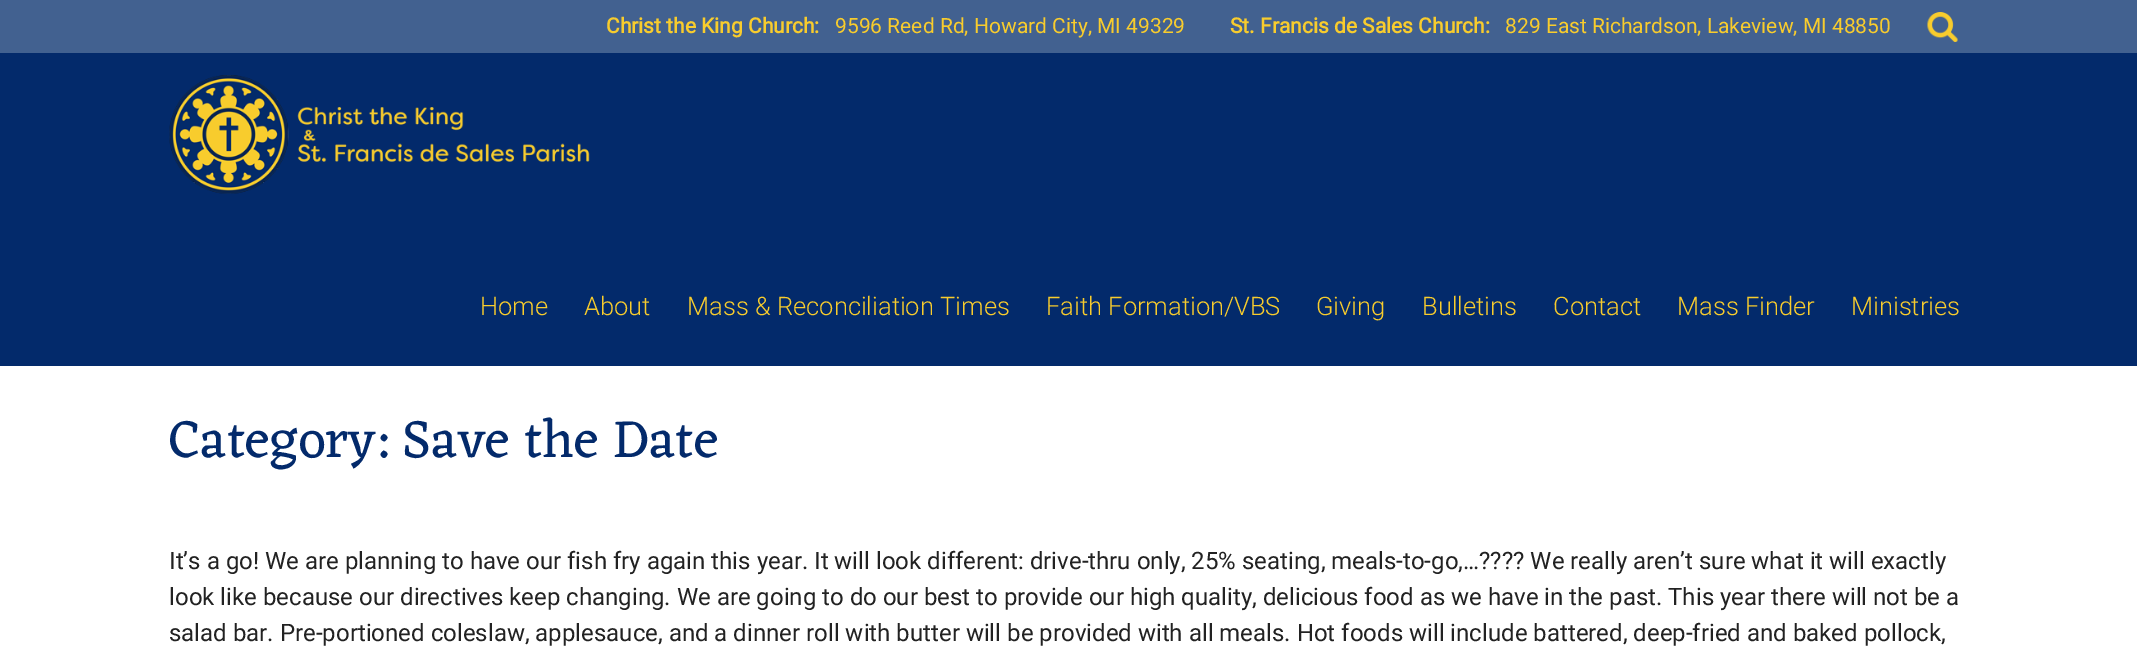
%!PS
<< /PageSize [2137 666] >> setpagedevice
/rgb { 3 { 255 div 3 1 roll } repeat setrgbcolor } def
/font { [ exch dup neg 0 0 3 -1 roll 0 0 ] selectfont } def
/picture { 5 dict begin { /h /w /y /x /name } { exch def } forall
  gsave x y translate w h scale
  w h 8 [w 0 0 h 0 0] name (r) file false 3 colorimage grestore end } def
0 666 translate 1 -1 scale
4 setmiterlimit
255 255 255 rgb
0 0 2137 666 rectfill
66 97 144 rgb
0 0 2137 53 rectfill
(img/1.rgb) 1927 12 31 30 picture
3 42 107 rgb
0 53 2137 313 rectfill
(img/2.rgb) 169 75 421 119 picture
/Roboto-Bold 21 font
248 204 45 rgb
606 33 moveto (Christ the King Church:) show
/Roboto-Regular 21 font
835 33 moveto (9596 Reed Rd, Howard City, MI 49329) show
/Roboto-Bold 21 font
1230 33 moveto (St. Francis de Sales Church:) show
/Roboto-Regular 21 font
1505 33 moveto (829 East Richardson, Lakeview, MI 48850) show
/Roboto-Light 25.5 font
[
  [(Home) 480 315]
  [(About) 584 315]
  [(Mass & Reconciliation Times) 687 315]
  [(Faith Formation/VBS) 1046 315]
  [(Giving) 1316 315]
  [(Bulletins) 1422 315]
  [(Contact) 1553 315]
  [(Mass Finder) 1677 315]
  [(Ministries) 1851 315]
] { aload pop moveto show } forall
/Eczar-Regular 54 font
3 42 107 rgb
169 457 moveto (Category: Save the Date) show
/Roboto-Regular 24 font
34 34 34 rgb
[
  [(It’s a go! We are planning to have our fish fry again this year. It will look different: drive-thru only, 25% seating, meals-to-go,…???? We really aren’t sure what it will exactly) 169 569]
  [(look like because our directives keep changing. We are going to do our best to provide our high quality, delicious food as we have in the past. This year there will not be a) 169 605]
  [(salad bar. Pre-portioned coleslaw, applesauce, and a dinner roll with butter will be provided with all meals. Hot foods will include battered, deep-fried and baked pollock,) 169 641]
] { aload pop moveto show } forall
showpage
